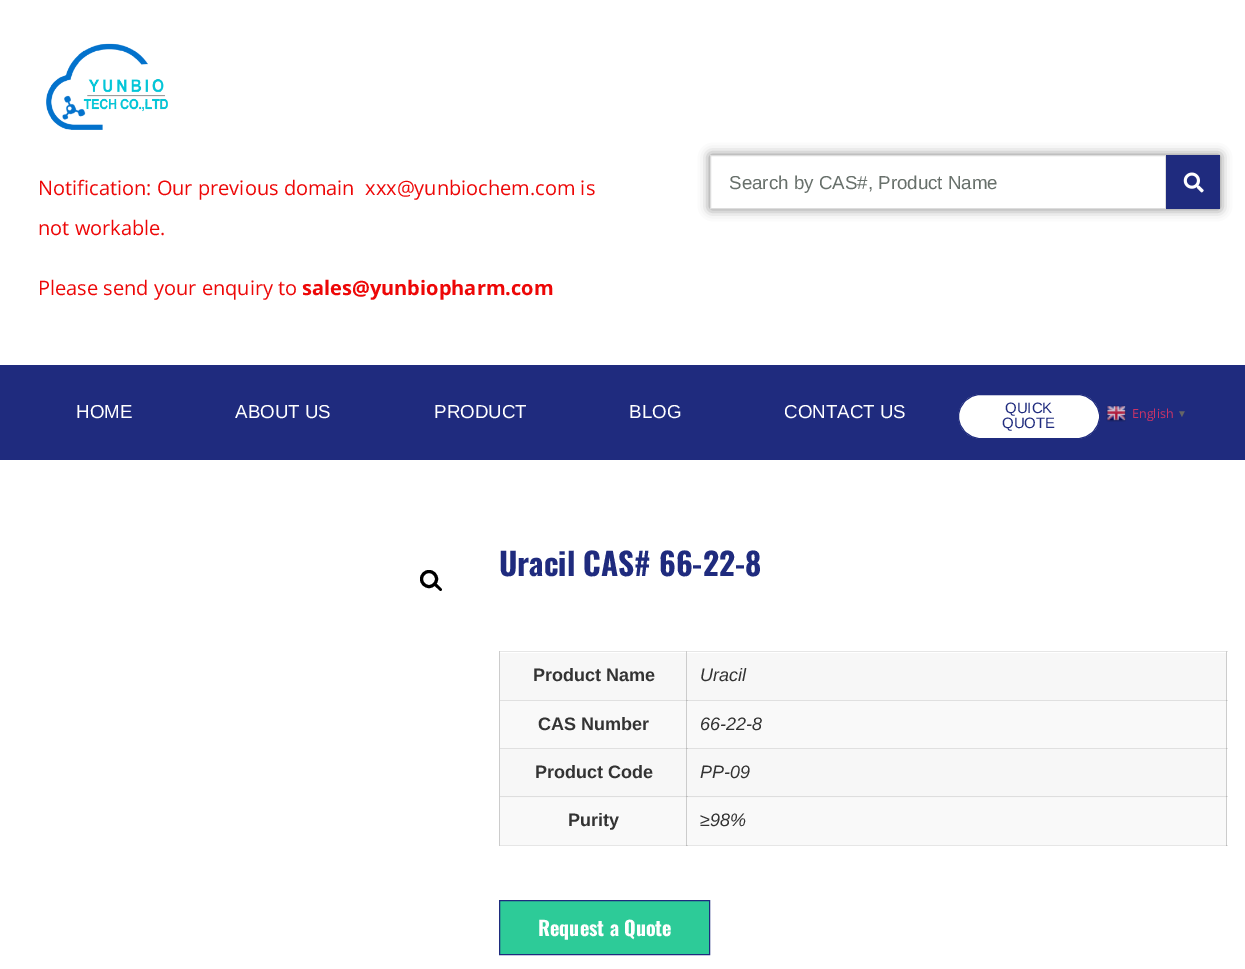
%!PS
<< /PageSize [1245 969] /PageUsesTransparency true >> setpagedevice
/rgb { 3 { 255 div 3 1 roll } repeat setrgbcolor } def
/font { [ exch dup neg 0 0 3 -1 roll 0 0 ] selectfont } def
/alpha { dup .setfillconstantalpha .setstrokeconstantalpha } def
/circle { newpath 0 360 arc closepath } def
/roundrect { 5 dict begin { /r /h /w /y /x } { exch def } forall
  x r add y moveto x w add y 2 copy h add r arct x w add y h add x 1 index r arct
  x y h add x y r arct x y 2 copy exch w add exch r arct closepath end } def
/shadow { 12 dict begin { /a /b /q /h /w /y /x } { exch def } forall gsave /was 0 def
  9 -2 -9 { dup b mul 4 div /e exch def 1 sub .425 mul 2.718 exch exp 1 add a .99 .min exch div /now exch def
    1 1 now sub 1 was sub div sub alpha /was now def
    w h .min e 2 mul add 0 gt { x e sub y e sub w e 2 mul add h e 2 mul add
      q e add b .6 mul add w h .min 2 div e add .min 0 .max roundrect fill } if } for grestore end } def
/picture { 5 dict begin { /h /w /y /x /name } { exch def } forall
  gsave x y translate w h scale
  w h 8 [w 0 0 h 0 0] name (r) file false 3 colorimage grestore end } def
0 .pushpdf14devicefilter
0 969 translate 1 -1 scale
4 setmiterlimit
255 255 255 rgb
0 0 1245 969 rectfill
[
  [1227 700 1 1 230 230 230]
  [1227 748 1 1 230 230 230]
  [1227 796 1 1 230 230 230]
  [499 845 729 1 230 230 230]
  [686 845 2 1 207 207 207]
] { aload pop rgb rectfill } forall
(img/1.rgb) 46 43 122 87 picture
0 0 0 rgb
710 155 510 54 0 5.5 0.5 shadow
255 255 255 rgb
710.5 155.5 moveto 1165.5 155.5 lineto 1165.5 208.5 lineto 710.5 208.5 lineto closepath gsave fill grestore
221 221 221 rgb
stroke
31 43 126 rgb
1166 155 54 54 rectfill
(img/2.rgb) 1183 172 21 21 picture
0 365 1245 95 rectfill
255 255 255 rgb
958.5 394.5 141 44 22 roundrect gsave fill grestore
31 43 126 rgb
stroke
(img/3.rgb) 1106 405 20 17 picture
0 0 0 rgb
3 setlinewidth
429 579 7.5 circle stroke
434.5 583.5 moveto 436 582 438 585.5 439 586 curveto 439.5 587 443 589 441.5 590.5 curveto 440 592 438 588.5 437 588 curveto 436 587 433 585 434.5 583.5 curveto closepath fill
[
  [499 651 729 1 230 230 230]
  [500 653 726 47 247 247 247]
  [1226 651 1 195 204 204 204]
  [1226 700 1 1 184 184 184]
  [500 700 726 1 224 224 224]
  [686 700 2 1 202 202 202]
  [500 701 726 47 249 249 249]
  [500 748 726 1 224 224 224]
  [686 748 2 1 202 202 202]
  [500 749 726 49 247 247 247]
  [500 796 726 1 222 222 222]
  [686 796 2 1 200 200 200]
  [500 798 726 47 249 249 249]
  [686 651 1 195 204 204 204]
  [686 700 1 1 184 184 184]
  [1226 748 1 1 184 184 184]
  [686 748 1 1 184 184 184]
  [1226 796 1 1 184 184 184]
  [686 796 1 1 184 184 184]
  [499 651 1 195 204 204 204]
  [1226 845 1 1 184 184 184]
  [686 845 1 1 184 184 184]
] { aload pop rgb rectfill } forall
45 203 152 rgb
499.5 900.5 moveto 709.5 900.5 lineto 709.5 954.5 lineto 499.5 954.5 lineto closepath gsave fill grestore
31 43 126 rgb
1 setlinewidth
stroke
/OpenSans-Regular 20 font
237 7 7 rgb
[
  [(Notification: Our previous domain  xxx@yunbiochem.com is) 38 195]
  [(not workable.) 38 235]
  [(Please send your enquiry to) 38 295]
] { aload pop moveto show } forall
/OpenSans-Bold 20 font
302 295 moveto (sales@yunbiopharm.com) show
/LiberationSans-Regular 18.75 font
104 112 107 rgb
729 189 moveto (Search by CAS#, Product Name) show
255 255 255 rgb
[
  [(HOME) 76 418]
  [(ABOUT US) 235 418]
  [(PRODUCT) 434 418]
  [(BLOG) 629 418]
  [(CONTACT US) 784 418]
] { aload pop moveto show } forall
/LiberationSans-Regular 15 font
31 43 126 rgb
1005 413 moveto (QUICK) show
1002 428 moveto (QUOTE) show
/OpenSans-Regular 12.5 font
204 51 102 rgb
1132 418 moveto (English) show
/LiberationSans-Bold 10 font
102 102 102 rgb
1177 417 moveto (▼) show
/Oswald-Bold 31.25 font
31 43 126 rgb
499 576 moveto (Uracil CAS# 66-22-8) show
/LiberationSans-Bold 18 font
51 51 51 rgb
533 681 moveto (Product Name) show
/LiberationSans-Italic 18 font
700 681 moveto (Uracil) show
/LiberationSans-Bold 18 font
538 730 moveto (CAS Number) show
/LiberationSans-Italic 18 font
700 730 moveto (66-22-8) show
/LiberationSans-Bold 18 font
535 778 moveto (Product Code) show
/LiberationSans-Italic 18 font
700 778 moveto (PP-09) show
/LiberationSans-Bold 18 font
568 826 moveto (Purity) show
/LiberationSans-Italic 18 font
700 826 moveto (≥98%) show
/Oswald-Bold 20 font
255 255 255 rgb
538 936 moveto (Request a Quote) show
.poppdf14devicefilter showpage
